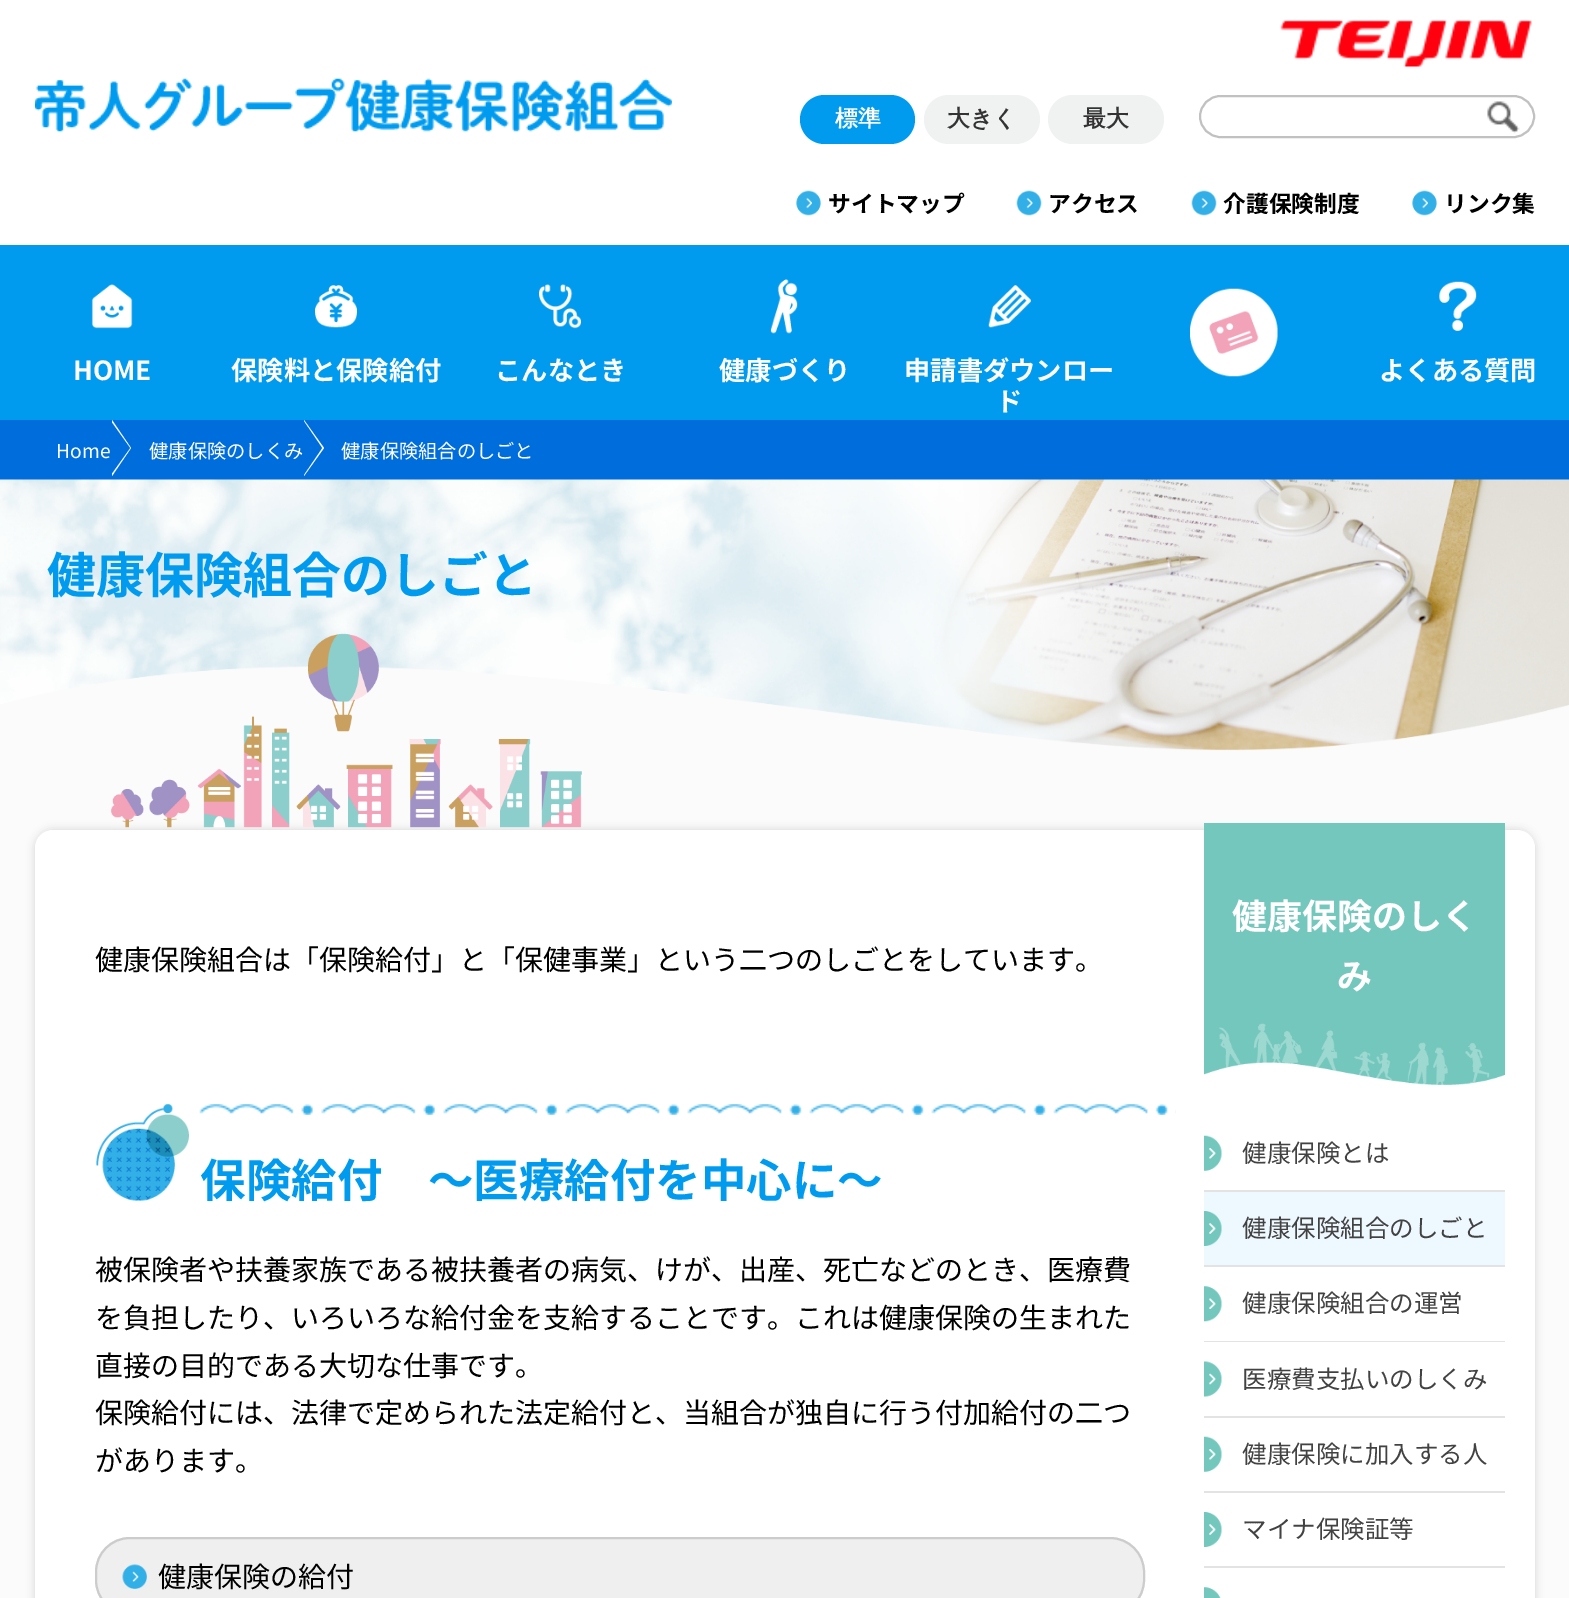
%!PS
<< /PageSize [1569 1598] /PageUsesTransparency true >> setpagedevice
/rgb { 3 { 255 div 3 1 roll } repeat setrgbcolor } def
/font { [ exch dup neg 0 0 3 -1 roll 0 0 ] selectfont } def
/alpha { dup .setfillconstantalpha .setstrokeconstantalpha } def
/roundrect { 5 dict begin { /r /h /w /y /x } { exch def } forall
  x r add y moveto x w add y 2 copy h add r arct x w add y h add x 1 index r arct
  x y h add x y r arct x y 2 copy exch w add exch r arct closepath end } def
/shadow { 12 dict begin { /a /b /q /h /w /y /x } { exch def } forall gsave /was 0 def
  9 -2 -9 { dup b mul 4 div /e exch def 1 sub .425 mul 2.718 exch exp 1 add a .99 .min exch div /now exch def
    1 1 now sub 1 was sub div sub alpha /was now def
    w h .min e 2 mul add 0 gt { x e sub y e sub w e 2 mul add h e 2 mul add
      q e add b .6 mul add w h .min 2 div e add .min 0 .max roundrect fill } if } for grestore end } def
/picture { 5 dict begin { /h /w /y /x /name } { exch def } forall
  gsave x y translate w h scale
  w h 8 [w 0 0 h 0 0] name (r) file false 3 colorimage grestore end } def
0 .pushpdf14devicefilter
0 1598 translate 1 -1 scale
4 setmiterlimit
251 251 251 rgb
0 0 1569 1598 rectfill
255 255 255 rgb
0 0 1569 245 rectfill
(img/1.rgb) 1280 20 252 47 picture
(img/2.rgb) 35 78 637 54 picture
0 155 238 rgb
800 95 115 49 24.5 roundrect fill
240 242 241 rgb
924 95 116 49 24.5 roundrect fill
1048 95 116 49 24.5 roundrect fill
193 193 193 rgb
2 setlinewidth
1200 96 334 41 20.5 roundrect stroke
(img/3.rgb) 1487 101 33 33 picture
(img/4.rgb) 796 190 25 26 picture
(img/5.rgb) 1016 190 26 26 picture
(img/5.rgb) 1191 190 26 26 picture
(img/4.rgb) 1412 190 25 26 picture
0 155 238 rgb
0 245 1569 175 rectfill
(img/6.rgb) 91 284 42 45 picture
(img/7.rgb) 315 285 42 43 picture
(img/8.rgb) 539 284 42 45 picture
(img/9.rgb) 770 279 28 55 picture
(img/10.rgb) 988 285 43 43 picture
(img/11.rgb) 1190 288 88 89 picture
(img/12.rgb) 1439 281 38 50 picture
0 109 221 rgb
0 420 1569 60 rectfill
255 255 255 rgb
112 476 moveto 112 420 lineto 131 448 lineto closepath fill
0 109 221 rgb
110 476 moveto 110 420 lineto 130 448 lineto closepath fill
255 255 255 rgb
304 476 moveto 304 420 lineto 324 448 lineto closepath fill
0 109 221 rgb
303 476 moveto 303 420 lineto 322 448 lineto closepath fill
(img/13.rgb) 0 479 1569 272 picture
0 0 0 rgb
35 830 1500 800 18 4.5 0.15 shadow
255 255 255 rgb
35 830 1500 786 18 roundrect fill
(img/14.rgb) 111 633 471 195 picture
(img/15.rgb) 96 1104 93 97 picture
(img/16.rgb) 199 1104 977 11 picture
239 239 239 rgb
95 1537 1050 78 35 roundrect fill
(img/17.rgb) 122 1564 25 25 picture
204 204 204 rgb
96 1538 1048 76 34 roundrect stroke
115 199 189 rgb
1204 823 301 262 rectfill
(img/18.rgb) 1204 1023 301 62 picture
(img/19.rgb) 1204 1135 18 36 picture
227 227 227 rgb
1204 1190 301 2 rectfill
238 248 255 rgb
1204 1192 301 73 rectfill
(img/20.rgb) 1204 1211 18 35 picture
227 227 227 rgb
1204 1265 301 2 rectfill
(img/21.rgb) 1204 1286 18 36 picture
1204 1341 301 1 rectfill
(img/22.rgb) 1204 1361 18 36 picture
1204 1416 301 2 rectfill
(img/19.rgb) 1204 1436 18 36 picture
1204 1491 301 2 rectfill
(img/23.rgb) 1204 1512 18 35 picture
1204 1566 301 2 rectfill
(img/24.rgb) 1204 1587 17 11 picture
/WenQuanYiZenHei-Bold 22.75 font
255 255 255 rgb
835 126 moveto (標準) show
51 51 51 rgb
947 126 moveto (大きく) show
1083 126 moveto (最大) show
/NotoSansCJKJP-Bold 22.75 font
0 0 0 rgb
[
  [(サイトマップ) 828 212]
  [(アクセス) 1048 212]
  [(介護保険制度) 1223 212]
  [(リンク集) 1444 212]
] { aload pop moveto show } forall
/NotoSansCJKJP-Bold 26.25 font
255 255 255 rgb
[
  [(HOME) 73 380]
  [(保険料と保険給付) 231 380]
  [(こんなとき) 495 380]
  [(健康づくり) 719 380]
  [(申請書ダウンロー) 904 380]
  [(ド) 996 411]
  [(よくある質問) 1379 380]
] { aload pop moveto show } forall
/NotoSansCJKJP-Regular 19.25 font
[
  [(Home) 56 458]
  [(健康保険のしくみ) 149 458]
  [(健康保険組合のしごと) 341 458]
] { aload pop moveto show } forall
/NotoSansCJKJP-Bold 49 font
0 155 238 rgb
47 593 moveto (健康保険組合のしごと) show
/NotoSansCJKJP-Regular 28 font
0 0 0 rgb
95 970 moveto (健康保険組合は「保険給付」と「保健事業」という二つのしごとをしています。) show
/NotoSansCJKJP-Bold 45.5 font
0 155 238 rgb
200 1197 moveto (保険給付　～医療給付を中心に～) show
/NotoSansCJKJP-Regular 28 font
0 0 0 rgb
[
  [(被保険者や扶養家族である被扶養者の病気、けが、出産、死亡などのとき、医療費) 95 1280]
  [(を負担したり、いろいろな給付金を支給することです。これは健康保険の生まれた) 95 1328]
  [(直接の目的である大切な仕事です。) 95 1376]
  [(保険給付には、法律で定められた法定給付と、当組合が独自に行う付加給付の二つ) 95 1423]
  [(があります。) 95 1471]
  [(健康保険の給付) 158 1587]
] { aload pop moveto show } forall
/NotoSansCJKJP-Bold 35 font
255 255 255 rgb
1232 929 moveto (健康保険のしく) show
1337 989 moveto (み) show
/NotoSansCJKJP-Regular 24.5 font
66 66 66 rgb
[
  [(健康保険とは) 1242 1162]
  [(健康保険組合のしごと) 1242 1237]
  [(健康保険組合の運営) 1242 1312]
  [(医療費支払いのしくみ) 1242 1388]
  [(健康保険に加入する人) 1242 1463]
  [(マイナ保険証等) 1242 1538]
] { aload pop moveto show } forall
.poppdf14devicefilter showpage
